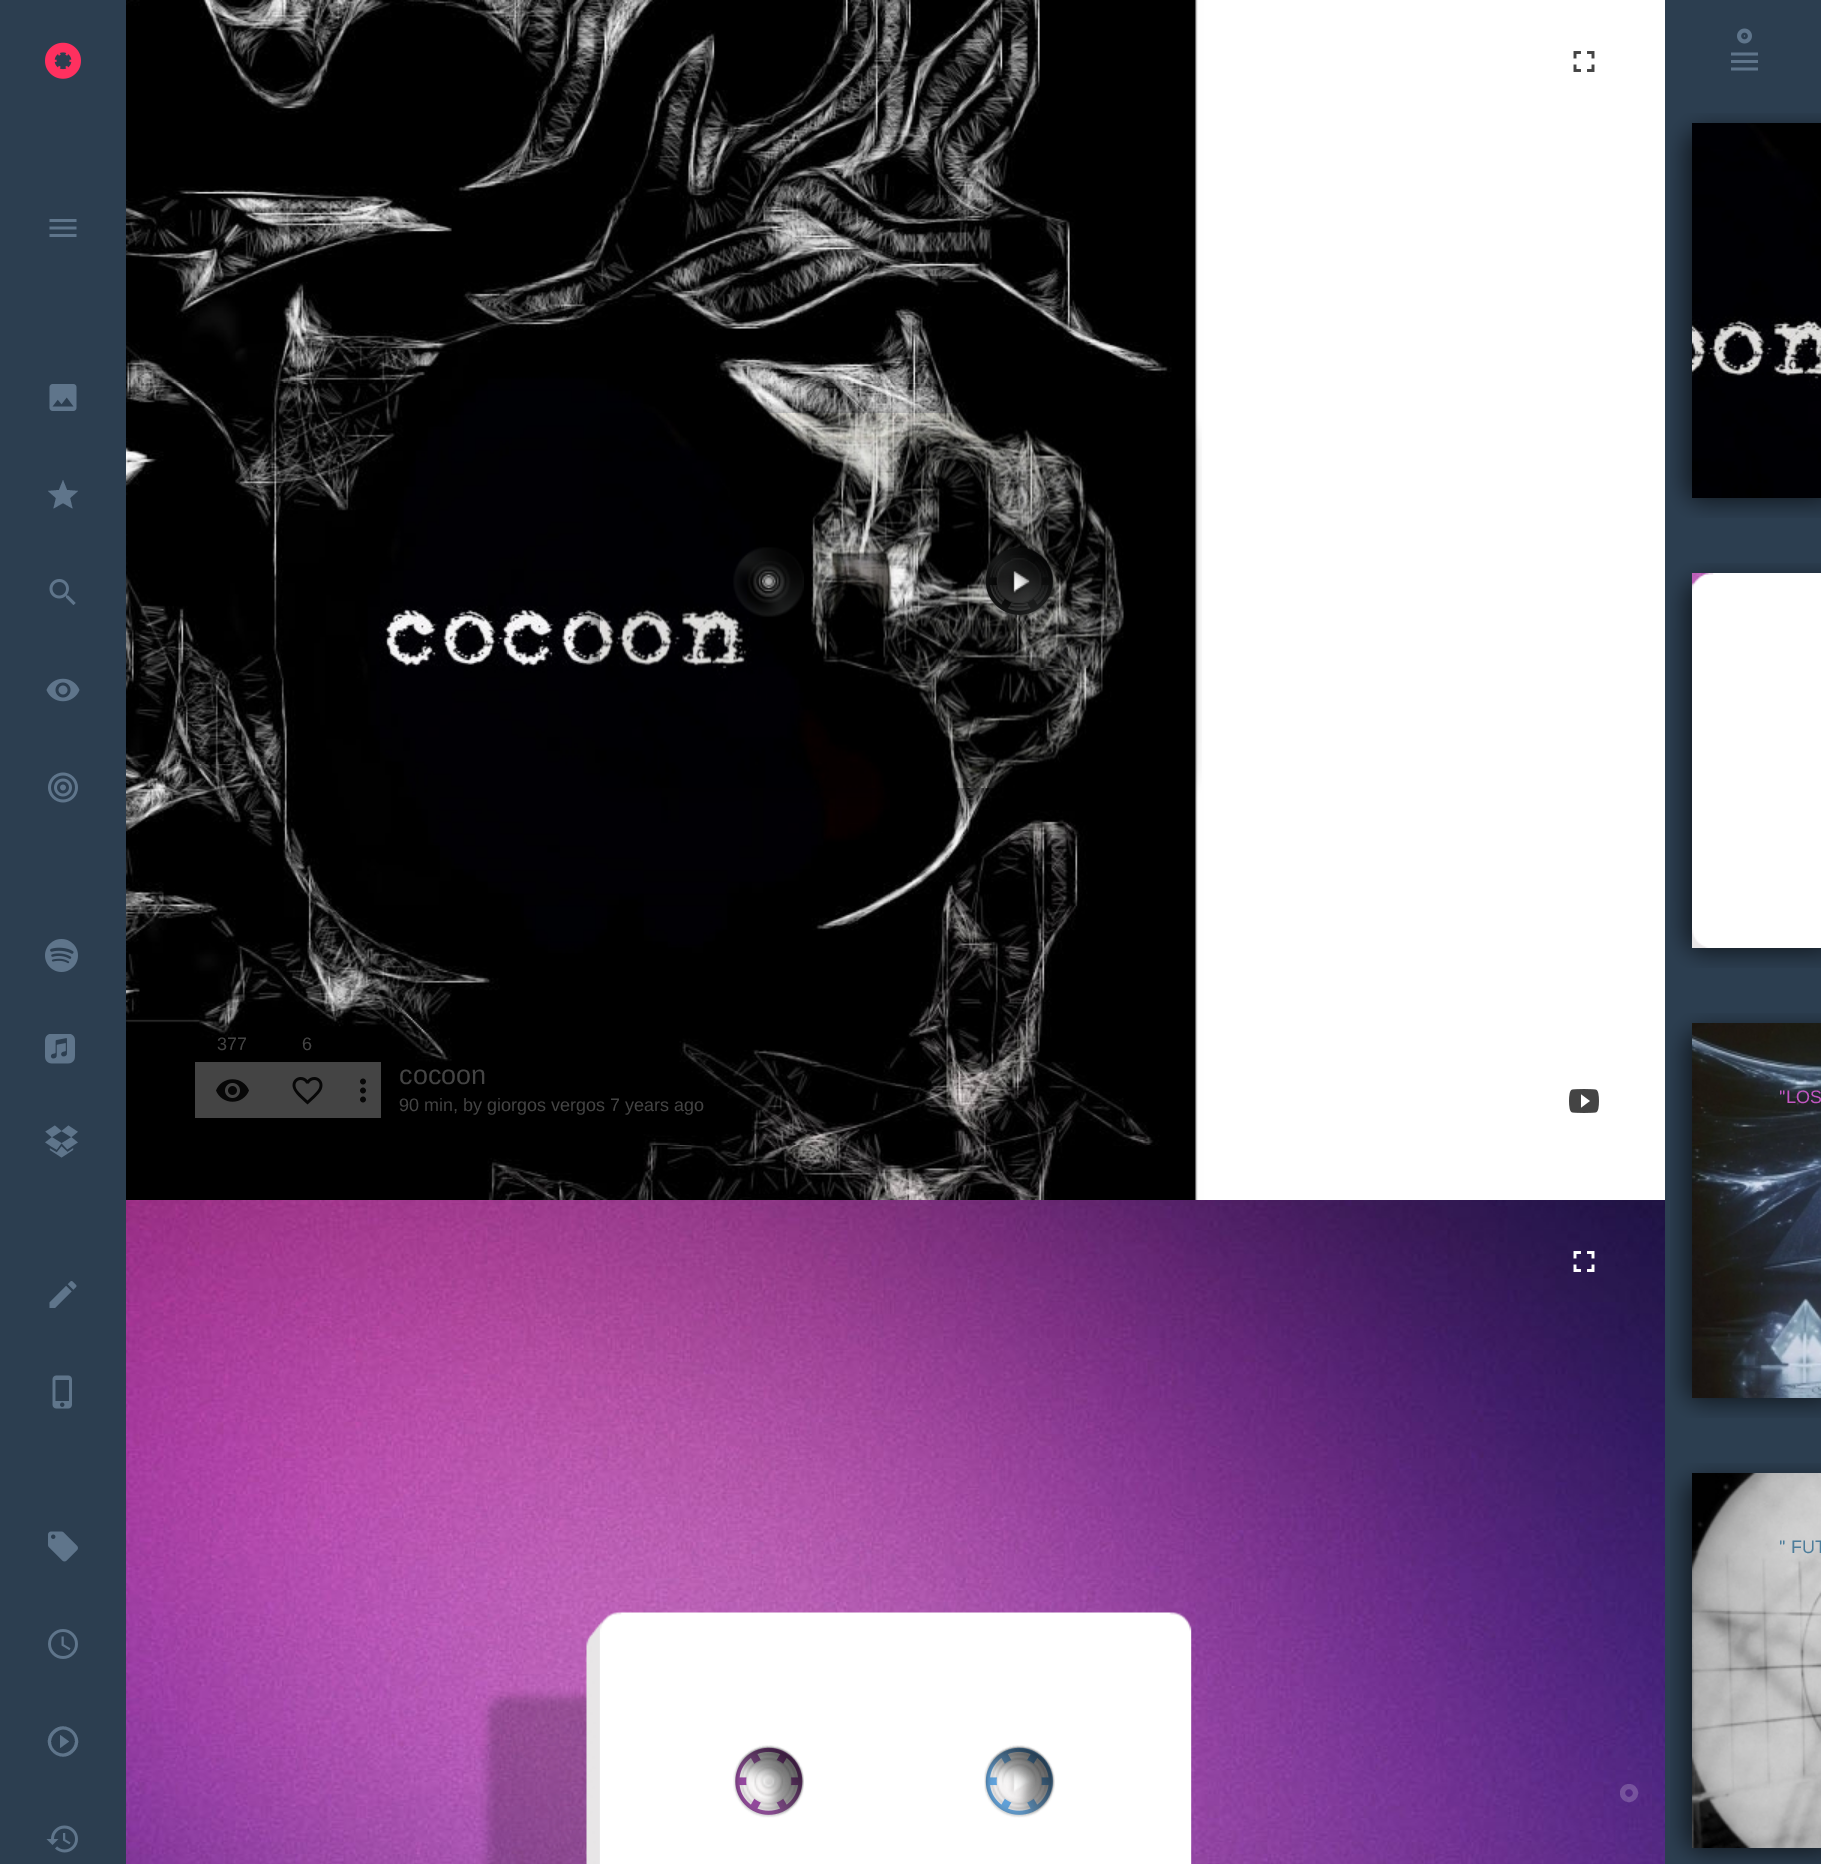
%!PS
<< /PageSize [1821 1864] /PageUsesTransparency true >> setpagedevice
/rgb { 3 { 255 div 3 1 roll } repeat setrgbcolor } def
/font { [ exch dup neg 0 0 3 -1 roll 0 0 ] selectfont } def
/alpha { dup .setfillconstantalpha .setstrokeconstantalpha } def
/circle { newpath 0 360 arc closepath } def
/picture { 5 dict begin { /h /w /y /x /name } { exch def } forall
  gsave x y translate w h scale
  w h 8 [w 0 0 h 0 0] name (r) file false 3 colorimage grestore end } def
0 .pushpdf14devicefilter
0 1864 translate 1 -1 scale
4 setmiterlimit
44 62 80 rgb
0 0 1821 1864 rectfill
(img/1.rgb) 45 42 36 37 picture
(img/2.rgb) 49 219 28 18 picture
(img/3.rgb) 49 384 28 27 picture
95 117 139 rgb
63 503 moveto 53.5 508.5 lineto 56 498 lineto 48 491 lineto 59 490 lineto 63 480 lineto 67 490 lineto 78 491 lineto 70 498 lineto 72.5 508.5 lineto closepath fill
(img/4.rgb) 49 579 27 26 picture
(img/5.rgb) 46 678 34 24 picture
(img/6.rgb) 48 772 30 31 picture
(img/7.rgb) 45 939 33 33 picture
(img/8.rgb) 45 1034 30 30 picture
(img/9.rgb) 45 1125 33 33 picture
(img/10.rgb) 49 1281 28 27 picture
(img/11.rgb) 52 1375 20 34 picture
(img/12.rgb) 48 1531 30 31 picture
(img/13.rgb) 48 1629 30 30 picture
54.5 1750 moveto 65.5 1761 82.5 1744 71.5 1733 curveto 60.5 1722 43.5 1739 54.5 1750 curveto closepath 52.5 1731 moveto 66.5 1717 87.5 1738 73.5 1752 curveto 59.5 1766 38.5 1745 52.5 1731 curveto closepath 60 1748 moveto 60 1735 lineto 69 1741.5 lineto closepath fill
(img/14.rgb) 46 1825 32 28 picture
(img/15.rgb) 126 0 1539 1200 picture
(img/16.rgb) 574 399 628 413 picture
(img/17.rgb) 600 413 591 375 picture
(img/19.rgb) 747 561 44 42 picture
(img/18.rgb) 733 547 71 70 picture
(img/22.rgb) 986 549 63 62 picture
(img/21.rgb) 985 548 68 67 picture
(img/20.rgb) 984 547 71 70 picture
(img/23.rgb) 1573 51 22 21 picture
68 68 68 rgb
195 1062 186 54 rectfill
(img/24.rgb) 216 1079 33 23 picture
(img/25.rgb) 292 1077 31 28 picture
(img/26.rgb) 360 1078 6 25 picture
(img/27.rgb) 1569 1089 30 24 picture
195 1116 186 2 rectfill
(img/28.rgb) 126 1200 1539 664 picture
(img/29.rgb) 1573 1251 22 21 picture
(img/30.rgb) 600 1613 591 251 picture
(img/33.rgb) 736 1753 65 62 picture
(img/32.rgb) 735 1747 68 68 picture
(img/31.rgb) 733 1745 71 73 picture
(img/36.rgb) 987 1753 65 62 picture
(img/35.rgb) 985 1747 68 68 picture
(img/34.rgb) 984 1745 71 73 picture
0.2 alpha
255 254 255 rgb
5 setlinewidth
1629 1793 6.5 circle stroke
1 alpha
(img/37.rgb) 1737 28 15 16 picture
(img/38.rgb) 1731 52 27 19 picture
(img/39.rgb) 1670 113 151 405 picture
(img/40.rgb) 1692 123 129 375 picture
(img/39.rgb) 1670 563 151 405 picture
(img/41.rgb) 1692 573 129 375 picture
(img/42.rgb) 1670 1013 151 405 picture
(img/43.rgb) 1692 1023 129 375 picture
(img/44.rgb) 1670 1463 151 401 picture
(img/45.rgb) 1692 1473 129 375 picture
/LiberationSans-Regular 18 font
68 68 68 rgb
217 1050 moveto (377) show
302 1050 moveto (6) show
/LiberationSans-Regular 27 font
399 1084 moveto (cocoon) show
/LiberationSans-Regular 18 font
399 1111 moveto (90 min, by giorgos vergos 7 years ago) show
194 86 193 rgb
1779 1103 moveto (''LOS) show
76 124 154 rgb
1779 1553 moveto ('' FUT) show
.poppdf14devicefilter showpage
